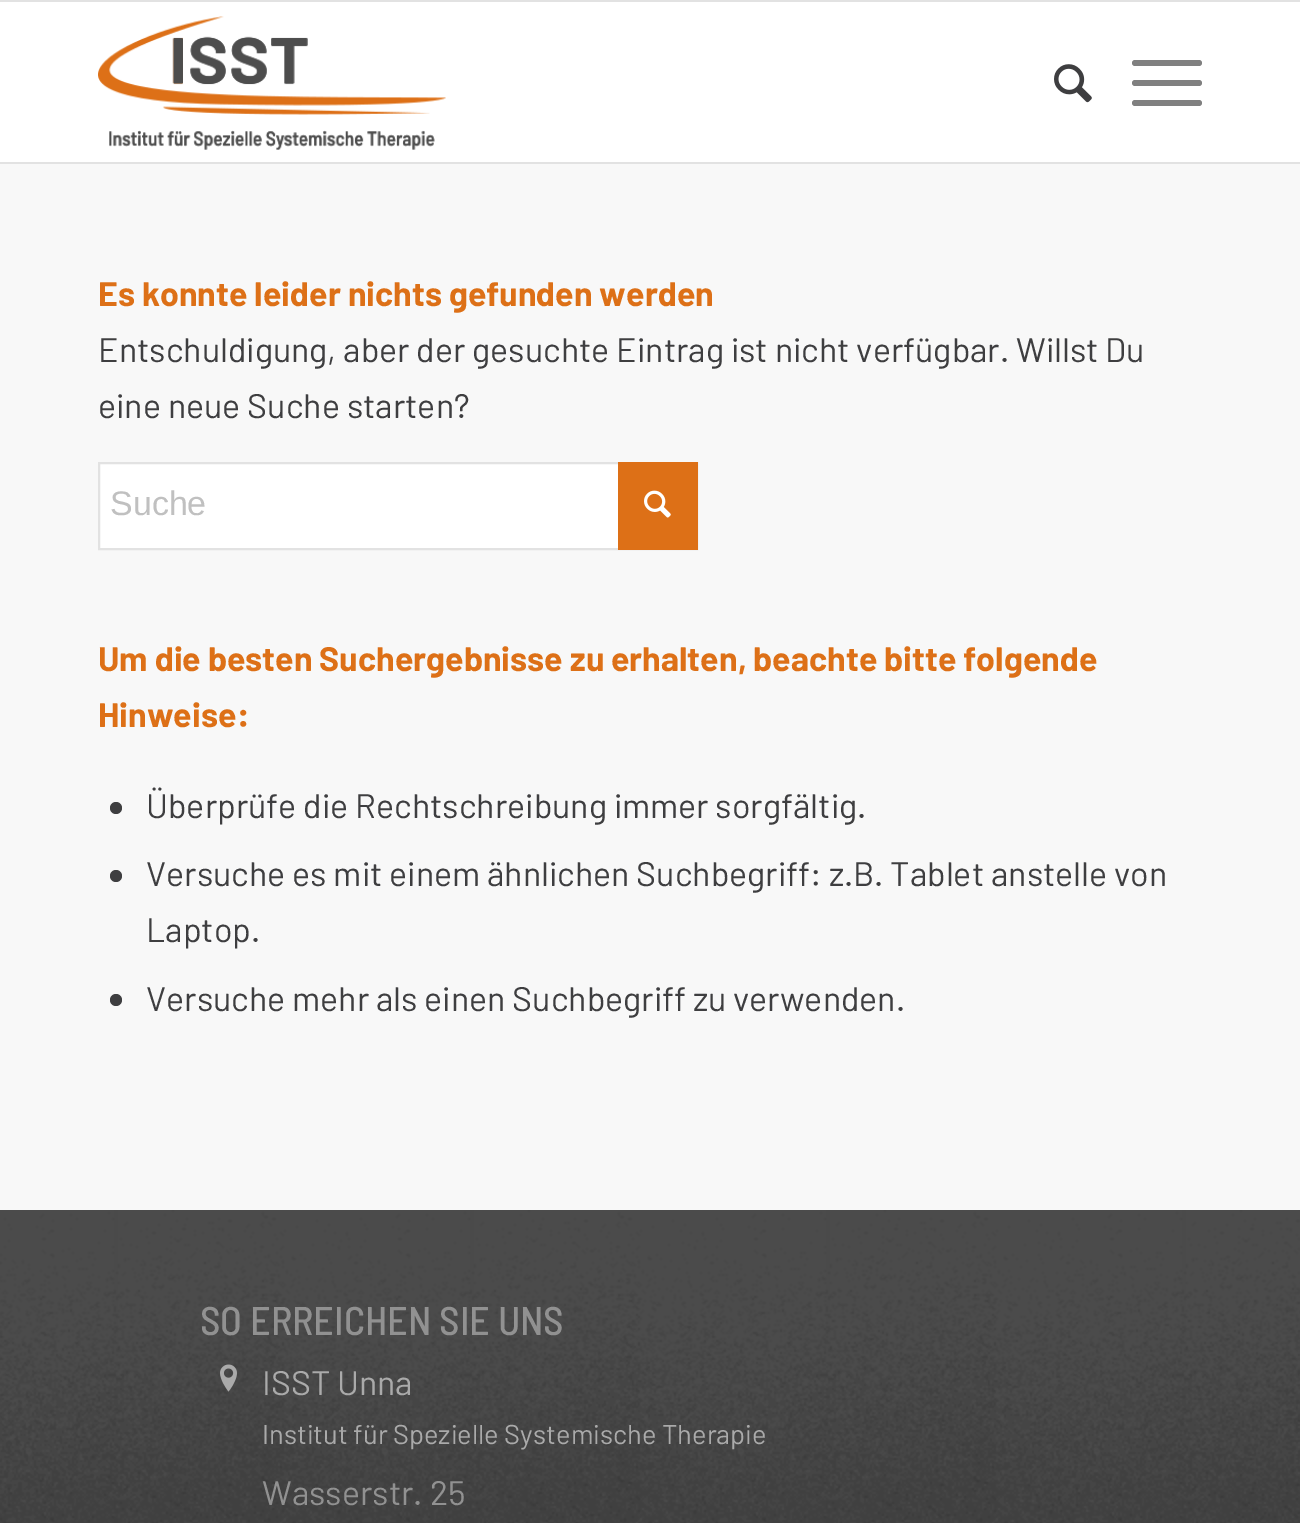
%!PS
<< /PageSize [1300 1523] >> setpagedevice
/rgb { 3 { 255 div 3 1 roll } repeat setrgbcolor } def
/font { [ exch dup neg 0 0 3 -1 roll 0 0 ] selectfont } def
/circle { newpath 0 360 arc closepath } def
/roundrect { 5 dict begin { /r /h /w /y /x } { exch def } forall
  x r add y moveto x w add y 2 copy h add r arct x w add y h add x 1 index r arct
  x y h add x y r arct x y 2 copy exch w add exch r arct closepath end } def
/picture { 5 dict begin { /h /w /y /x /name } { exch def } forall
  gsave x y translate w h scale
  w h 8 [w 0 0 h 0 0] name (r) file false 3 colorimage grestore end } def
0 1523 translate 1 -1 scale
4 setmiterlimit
248 248 248 rgb
0 0 1300 1523 rectfill
[
  [0 0 1300 2 226 226 226]
  [0 162 1300 2 226 226 226]
  [0 2 1300 160 255 255 255]
] { aload pop rgb rectfill } forall
(img/1.rgb) 98 16 348 134 picture
(img/2.rgb) 1054 64 38 39 picture
128 128 128 rgb
1132 80 70 6 3 roundrect fill
1132 60 70 6 3 roundrect fill
1132 100 70 6 3 roundrect fill
255 255 255 rgb
100 464 518 84 rectfill
226 226 226 rgb
2 setlinewidth
99 463 598 86 rectstroke
221 112 23 rgb
618 462 80 88 rectfill
(img/3.rgb) 644 490 27 28 picture
62 62 64 rgb
116 808 6 circle fill
116 876 6 circle fill
116 1000 6 circle fill
51 51 51 rgb
0 1210 1300 313 rectfill
(img/4.rgb) 0 1210 1300 313 picture
(img/5.rgb) 220 1364 17 28 picture
/Barlow-Bold 34 font
221 112 23 rgb
98 306 moveto (Es konnte leider nichts gefunden werden) show
/Barlow-Regular 34 font
62 62 64 rgb
98 362 moveto (Entschuldigung, aber der gesuchte Eintrag ist nicht verfügbar. Willst Du) show
98 418 moveto (eine neue Suche starten?) show
/LiberationSans-Regular 34 font
192 192 192 rgb
110 515 moveto (Suche) show
/Barlow-Bold 34 font
221 112 23 rgb
98 671 moveto (Um die besten Suchergebnisse zu erhalten, beachte bitte folgende) show
98 727 moveto (Hinweise:) show
/Barlow-Regular 34 font
62 62 64 rgb
[
  [(Überprüfe die Rechtschreibung immer sorgfältig.) 146 818]
  [(Versuche es mit einem ähnlichen Suchbegriff: z.B. Tablet anstelle von) 146 886]
  [(Laptop.) 146 942]
  [(Versuche mehr als einen Suchbegriff zu verwenden.) 146 1011]
] { aload pop moveto show } forall
/BarlowSemiCondensed-Medium 40 font
145 145 145 rgb
200 1335 moveto (SO ERREICHEN SIE UNS) show
/Barlow-Regular 34 font
170 170 170 rgb
262 1395 moveto (ISST Unna) show
/Barlow-Regular 27.25 font
262 1444 moveto (Institut für Spezielle Systemische Therapie) show
/Barlow-Regular 34 font
145 145 145 rgb
262 1505 moveto (Wasserstr. 25) show
showpage
